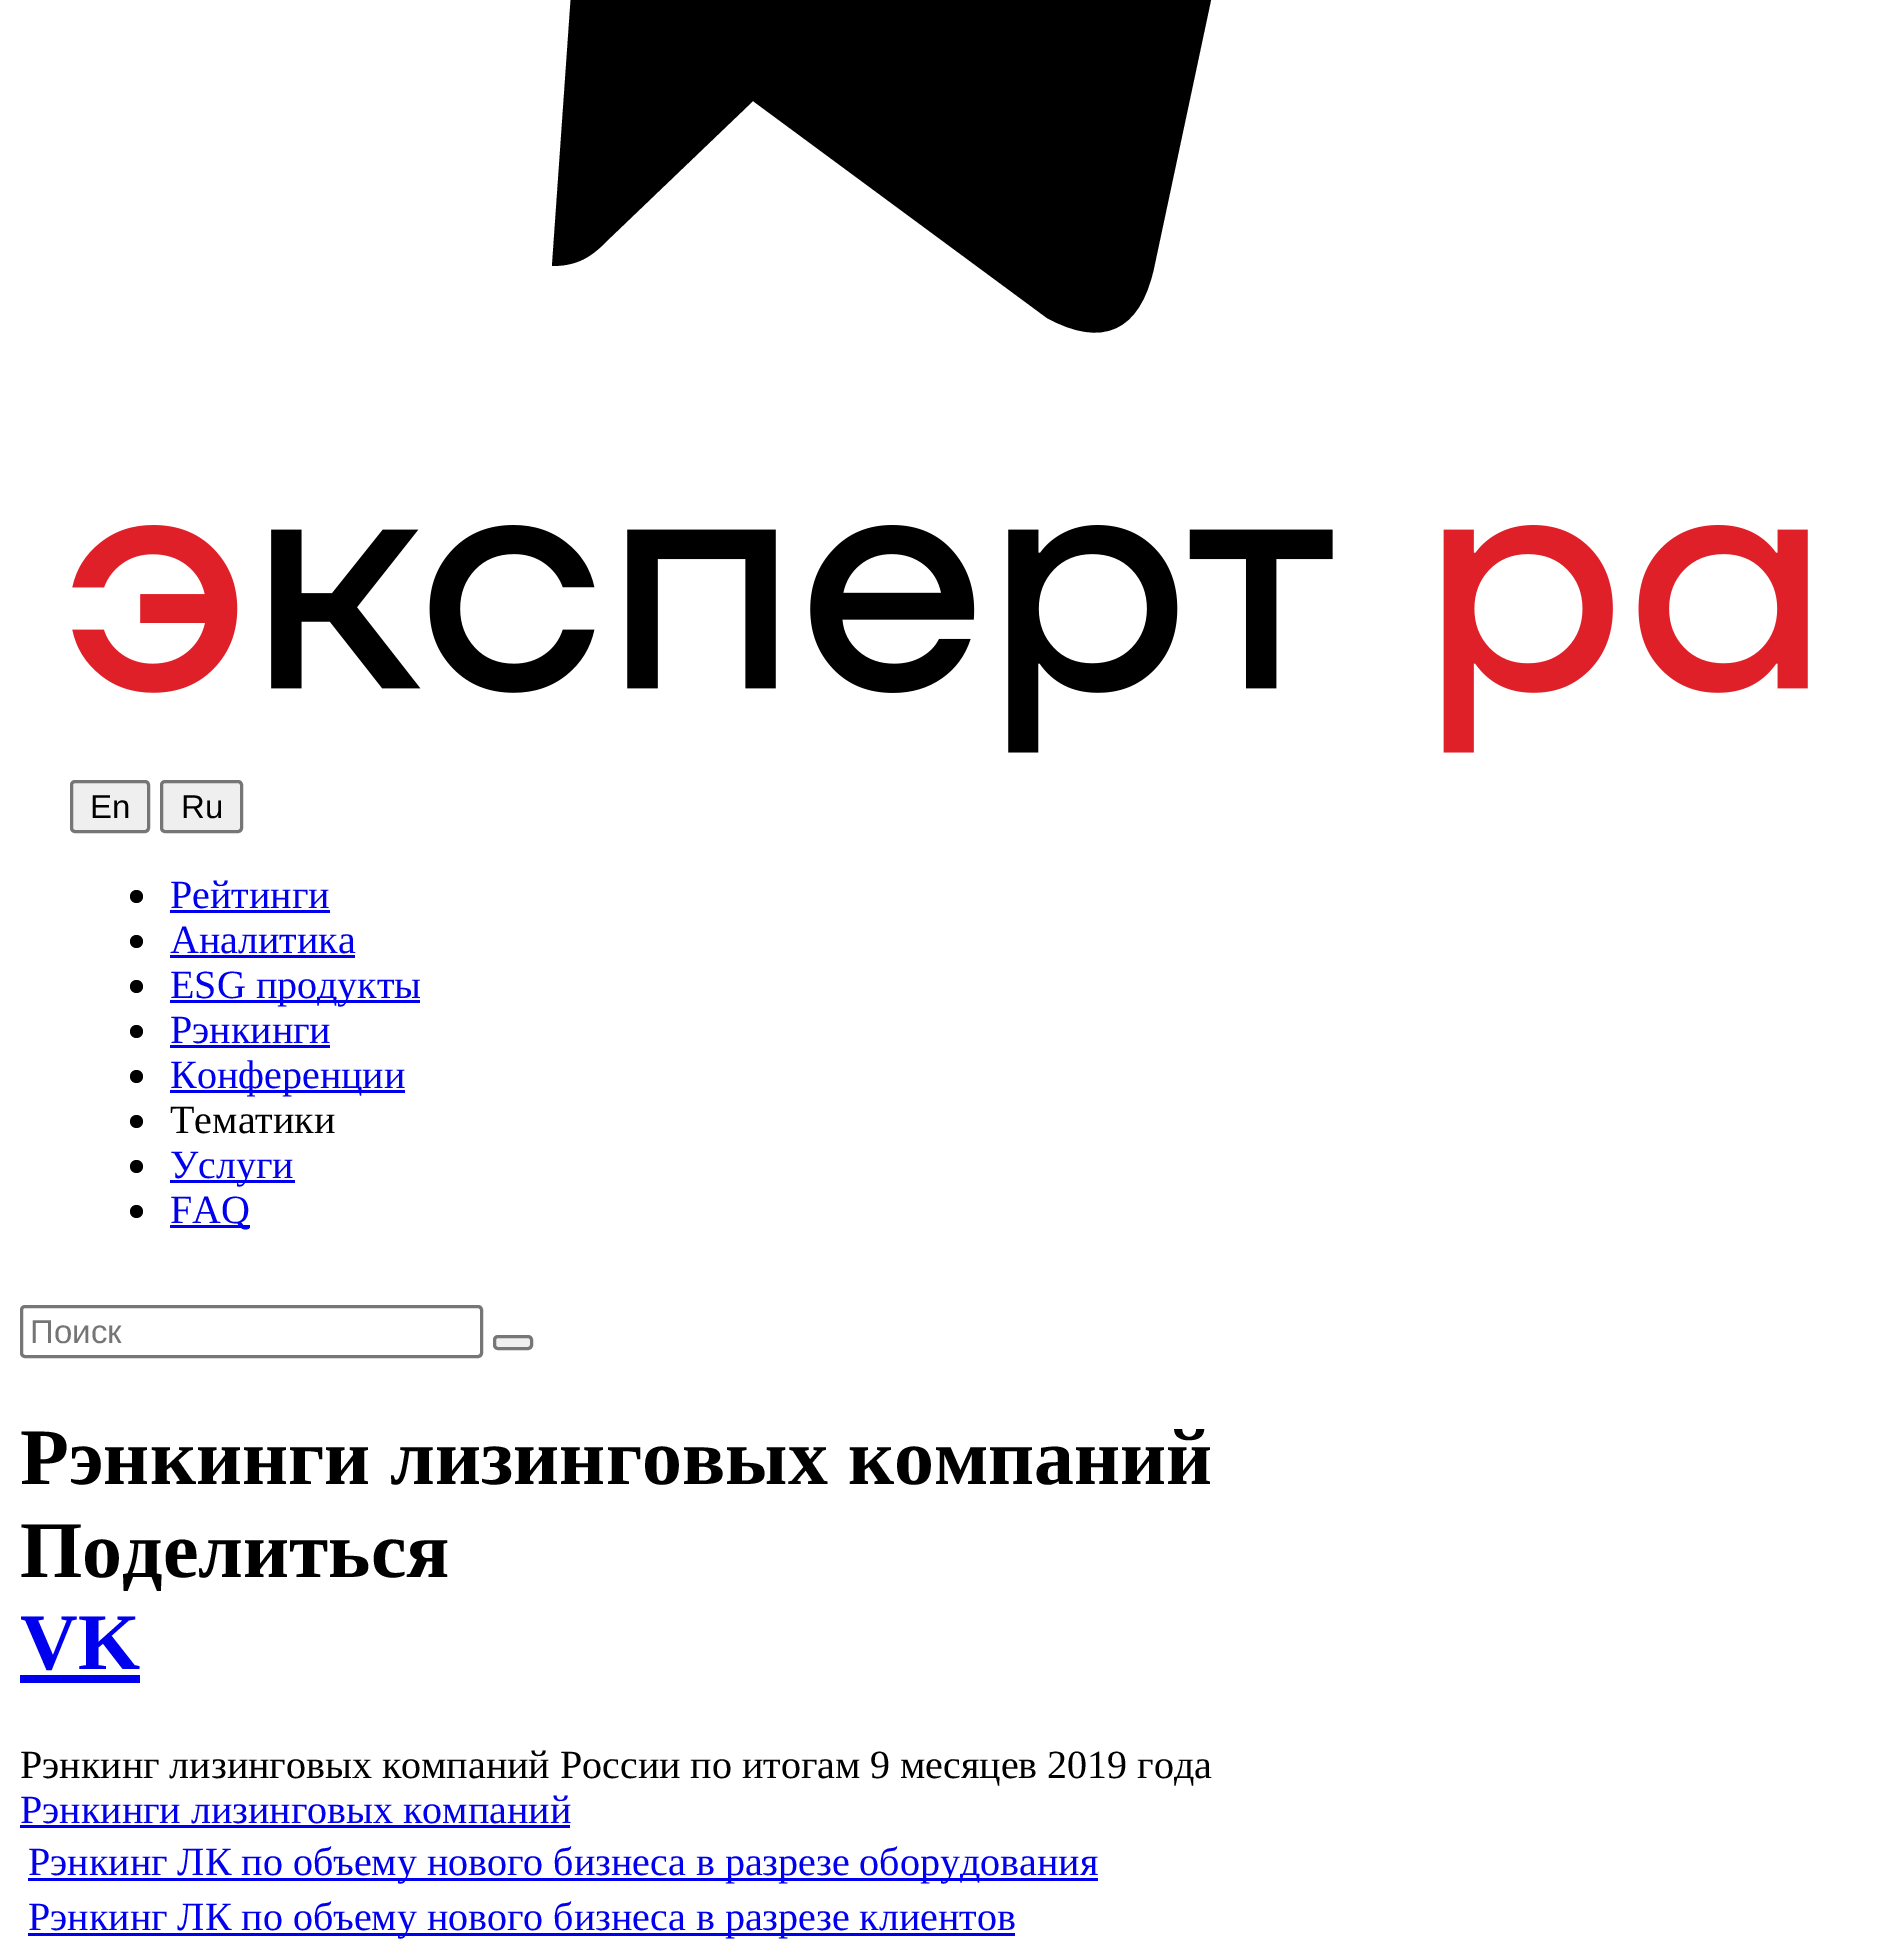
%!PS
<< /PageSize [1880 1945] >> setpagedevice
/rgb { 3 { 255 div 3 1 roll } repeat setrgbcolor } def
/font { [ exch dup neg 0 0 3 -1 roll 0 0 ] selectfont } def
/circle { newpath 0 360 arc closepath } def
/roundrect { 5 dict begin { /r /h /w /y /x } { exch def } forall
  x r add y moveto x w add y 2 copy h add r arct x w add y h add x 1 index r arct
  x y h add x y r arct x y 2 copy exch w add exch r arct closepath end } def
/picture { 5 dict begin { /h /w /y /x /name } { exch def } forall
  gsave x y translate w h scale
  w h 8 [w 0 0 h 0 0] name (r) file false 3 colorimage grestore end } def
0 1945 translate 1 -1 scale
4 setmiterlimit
255 255 255 rgb
0 0 1880 1945 rectfill
0 0 0 rgb
1348 -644 moveto 1154 268 lineto 1140 332 1102 348 1047 318 curveto 753 101 lineto 611 237 lineto 595 253 582 266 552 266 curveto 573 -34 lineto 1119 -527 lineto 1142 -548 1114 -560 1082 -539 curveto 407 -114 lineto 116 -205 lineto 53 -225 52 -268 129 -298 curveto 1266 -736 lineto 1319 -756 1365 -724 1348 -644 curveto closepath fill
(img/1.rgb) 72 525 1736 228 picture
239 239 239 rgb
71.5 781.5 77 50 3.5 roundrect gsave fill grestore
118 118 118 rgb
3 setlinewidth
stroke
239 239 239 rgb
161.5 781.5 80 50 3.5 roundrect gsave fill grestore
118 118 118 rgb
stroke
0 0 0 rgb
136.5 896.5 6.5 circle fill
0 0 238 rgb
170 910 160 3 rectfill
0 0 0 rgb
136.5 941.5 6.5 circle fill
0 0 238 rgb
170 955 185 3 rectfill
0 0 0 rgb
136.5 986.5 6.5 circle fill
0 0 238 rgb
170 1000 250 3 rectfill
0 0 0 rgb
136.5 1031.5 6.5 circle fill
0 0 238 rgb
170 1045 160 3 rectfill
0 0 0 rgb
136.5 1076.5 6.5 circle fill
0 0 238 rgb
170 1090 235 3 rectfill
0 0 0 rgb
136.5 1121.5 6.5 circle fill
136.5 1166.5 6.5 circle fill
0 0 238 rgb
170 1180 125 3 rectfill
0 0 0 rgb
136.5 1211.5 6.5 circle fill
0 0 238 rgb
170 1225 80 3 rectfill
118 118 118 rgb
21.5 1306.5 460 50 3.5 roundrect stroke
239 239 239 rgb
494.5 1336.5 37 12 3.5 roundrect gsave fill grestore
118 118 118 rgb
stroke
[
  [20 1675 120 8 0 0 238]
  [20 1825 550 3 0 0 238]
  [28 1878 1070 3 0 0 238]
  [28 1933 987 3 0 0 238]
] { aload pop rgb rectfill } forall
/LiberationSans-Regular 33 font
0 0 0 rgb
90 818 moveto (En) show
181 818 moveto (Ru) show
/LiberationSerif-Regular 40 font
0 0 238 rgb
[
  [(Рейтинги) 170 908]
  [(Аналитика) 170 953]
  [(ESG продукты) 170 998]
  [(Рэнкинги) 170 1043]
  [(Конференции) 170 1088]
] { aload pop moveto show } forall
0 0 0 rgb
170 1133 moveto (Тематики) show
0 0 238 rgb
170 1178 moveto (Услуги) show
170 1223 moveto (FAQ) show
/LiberationSans-Regular 33 font
117 117 117 rgb
30 1343 moveto (Поиск) show
/LiberationSerif-Bold 80 font
0 0 0 rgb
20 1484 moveto (Рэнкинги лизинговых компаний) show
20 1577 moveto (Поделиться) show
0 0 238 rgb
20 1669 moveto (VK) show
/LiberationSerif-Regular 40 font
0 0 0 rgb
20 1778 moveto (Рэнкинг лизинговых компаний России по итогам 9 месяцев 2019 года) show
0 0 238 rgb
[
  [(Рэнкинги лизинговых компаний) 20 1823]
  [(Рэнкинг ЛК по объему нового бизнеса в разрезе оборудования) 28 1875]
  [(Рэнкинг ЛК по объему нового бизнеса в разрезе клиентов) 28 1930]
] { aload pop moveto show } forall
showpage
